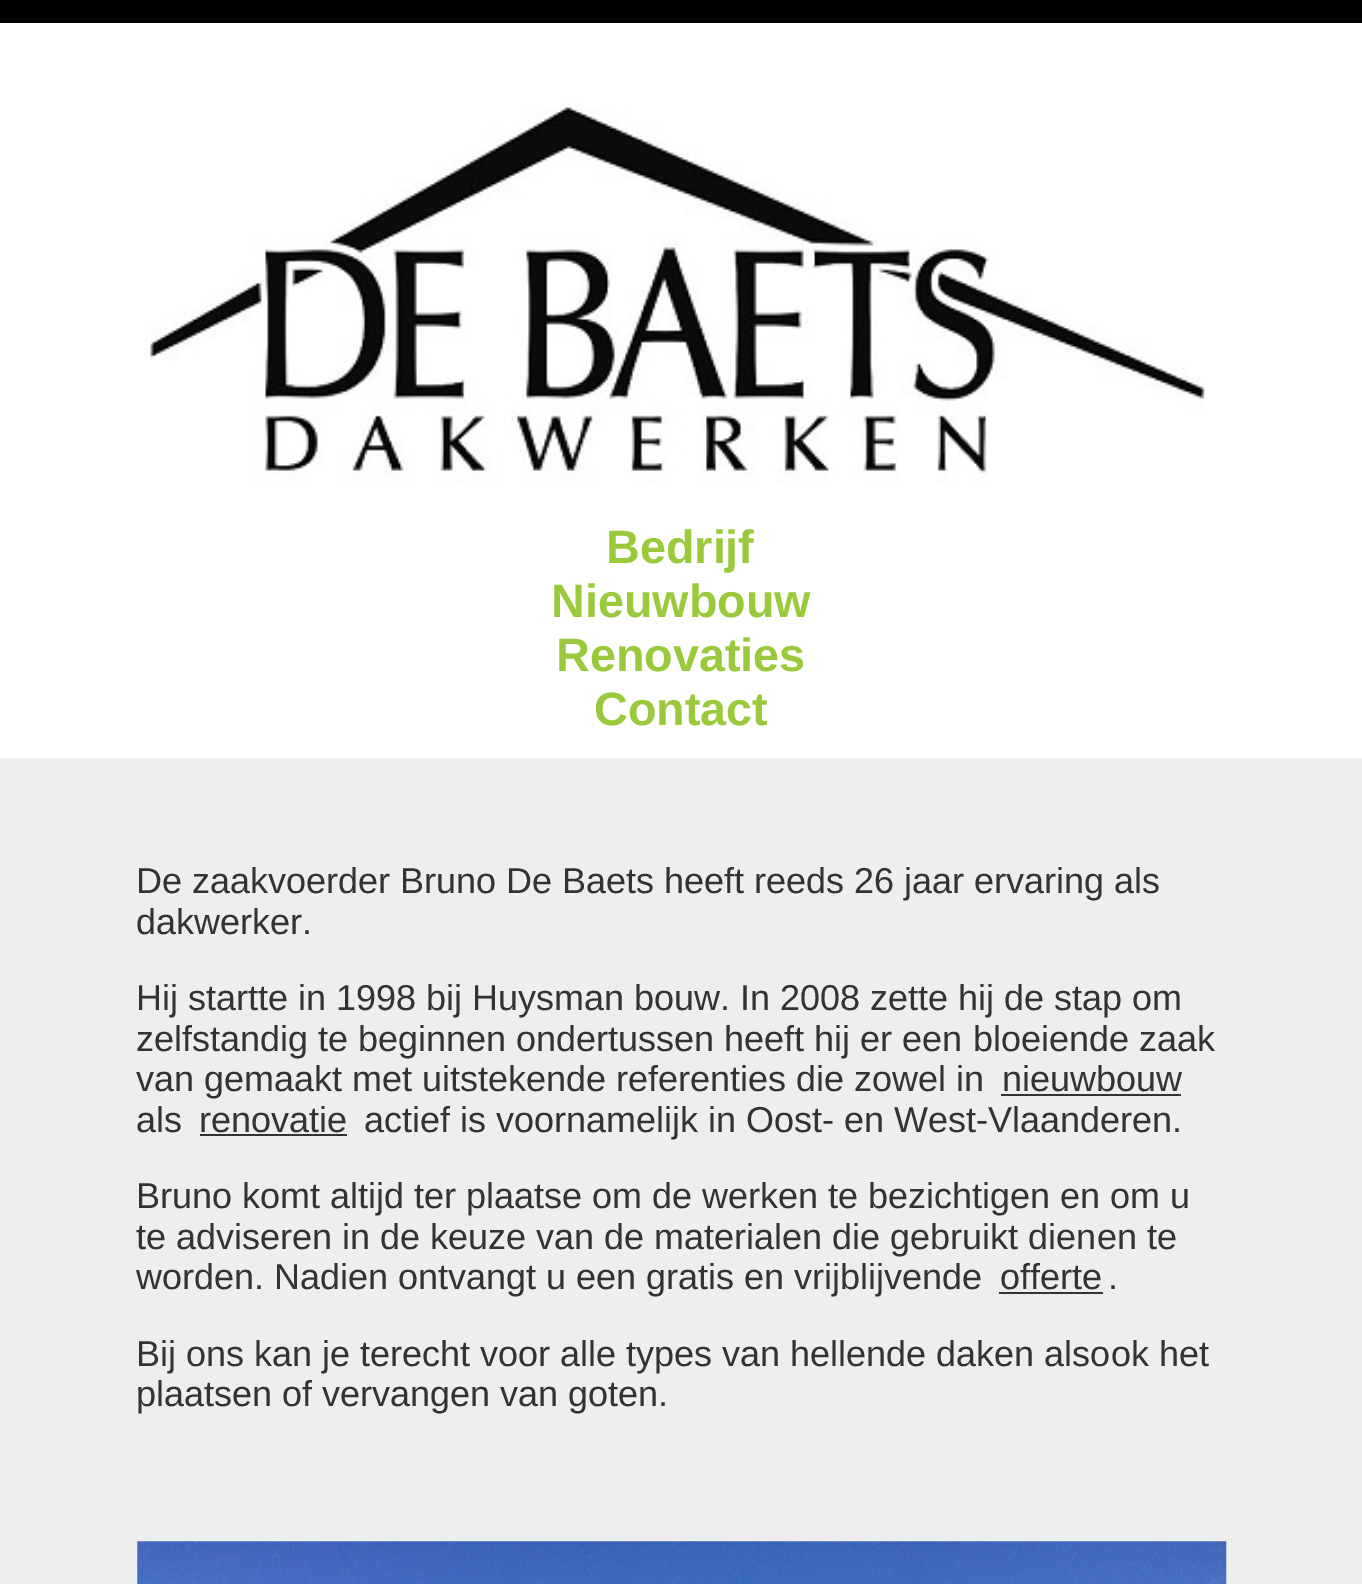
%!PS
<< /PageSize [1362 1584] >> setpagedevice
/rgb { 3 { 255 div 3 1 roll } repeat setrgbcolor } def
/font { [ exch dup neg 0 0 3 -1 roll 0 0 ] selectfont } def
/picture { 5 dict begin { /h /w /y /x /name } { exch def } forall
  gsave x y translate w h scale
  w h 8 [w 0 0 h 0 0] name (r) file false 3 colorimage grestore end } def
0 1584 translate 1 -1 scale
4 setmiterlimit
255 255 255 rgb
0 0 1362 1584 rectfill
0 0 0 rgb
0 0 1362 23 rectfill
(img/1.rgb) 144 103 1061 380 picture
[
  [0 758 1362 826 239 238 239]
  [1001 1094 180 2 51 51 51]
  [200 1134 147 2 51 51 51]
  [999 1292 104 2 51 51 51]
] { aload pop rgb rectfill } forall
(img/2.rgb) 137 1541 1090 43 picture
/LiberationSans-Bold 46.75 font
154 202 60 rgb
[
  [(Bedrijf) 606 563]
  [(Nieuwbouw) 551 617]
  [(Renovaties) 556 671]
  [(Contact) 594 725]
] { aload pop moveto show } forall
/LiberationSans-Regular 36 font
51 51 51 rgb
[
  [(De zaakvoerder Bruno De Baets heeft reeds 26 jaar ervaring als) 136 893]
  [(dakwerker.) 136 934]
  [(Hij startte in 1998 bij Huysman bouw. In 2008 zette hij de stap om) 136 1010]
  [(zelfstandig te beginnen ondertussen heeft hij er een bloeiende zaak) 136 1051]
  [(van gemaakt met uitstekende referenties die zowel in) 136 1091]
  [(nieuwbouw) 1002 1091]
  [(als) 136 1132]
  [(renovatie) 199 1132]
  [(actief is voornamelijk in Oost- en West-Vlaanderen.) 364 1132]
  [(Bruno komt altijd ter plaatse om de werken te bezichtigen en om u) 136 1208]
  [(te adviseren in de keuze van de materialen die gebruikt dienen te) 136 1249]
  [(worden. Nadien ontvangt u een gratis en vrijblijvende) 136 1289]
  [(offerte) 1000 1289]
  [(.) 1108 1289]
  [(Bij ons kan je terecht voor alle types van hellende daken alsook het) 136 1366]
  [(plaatsen of vervangen van goten.) 136 1406]
] { aload pop moveto show } forall
showpage
